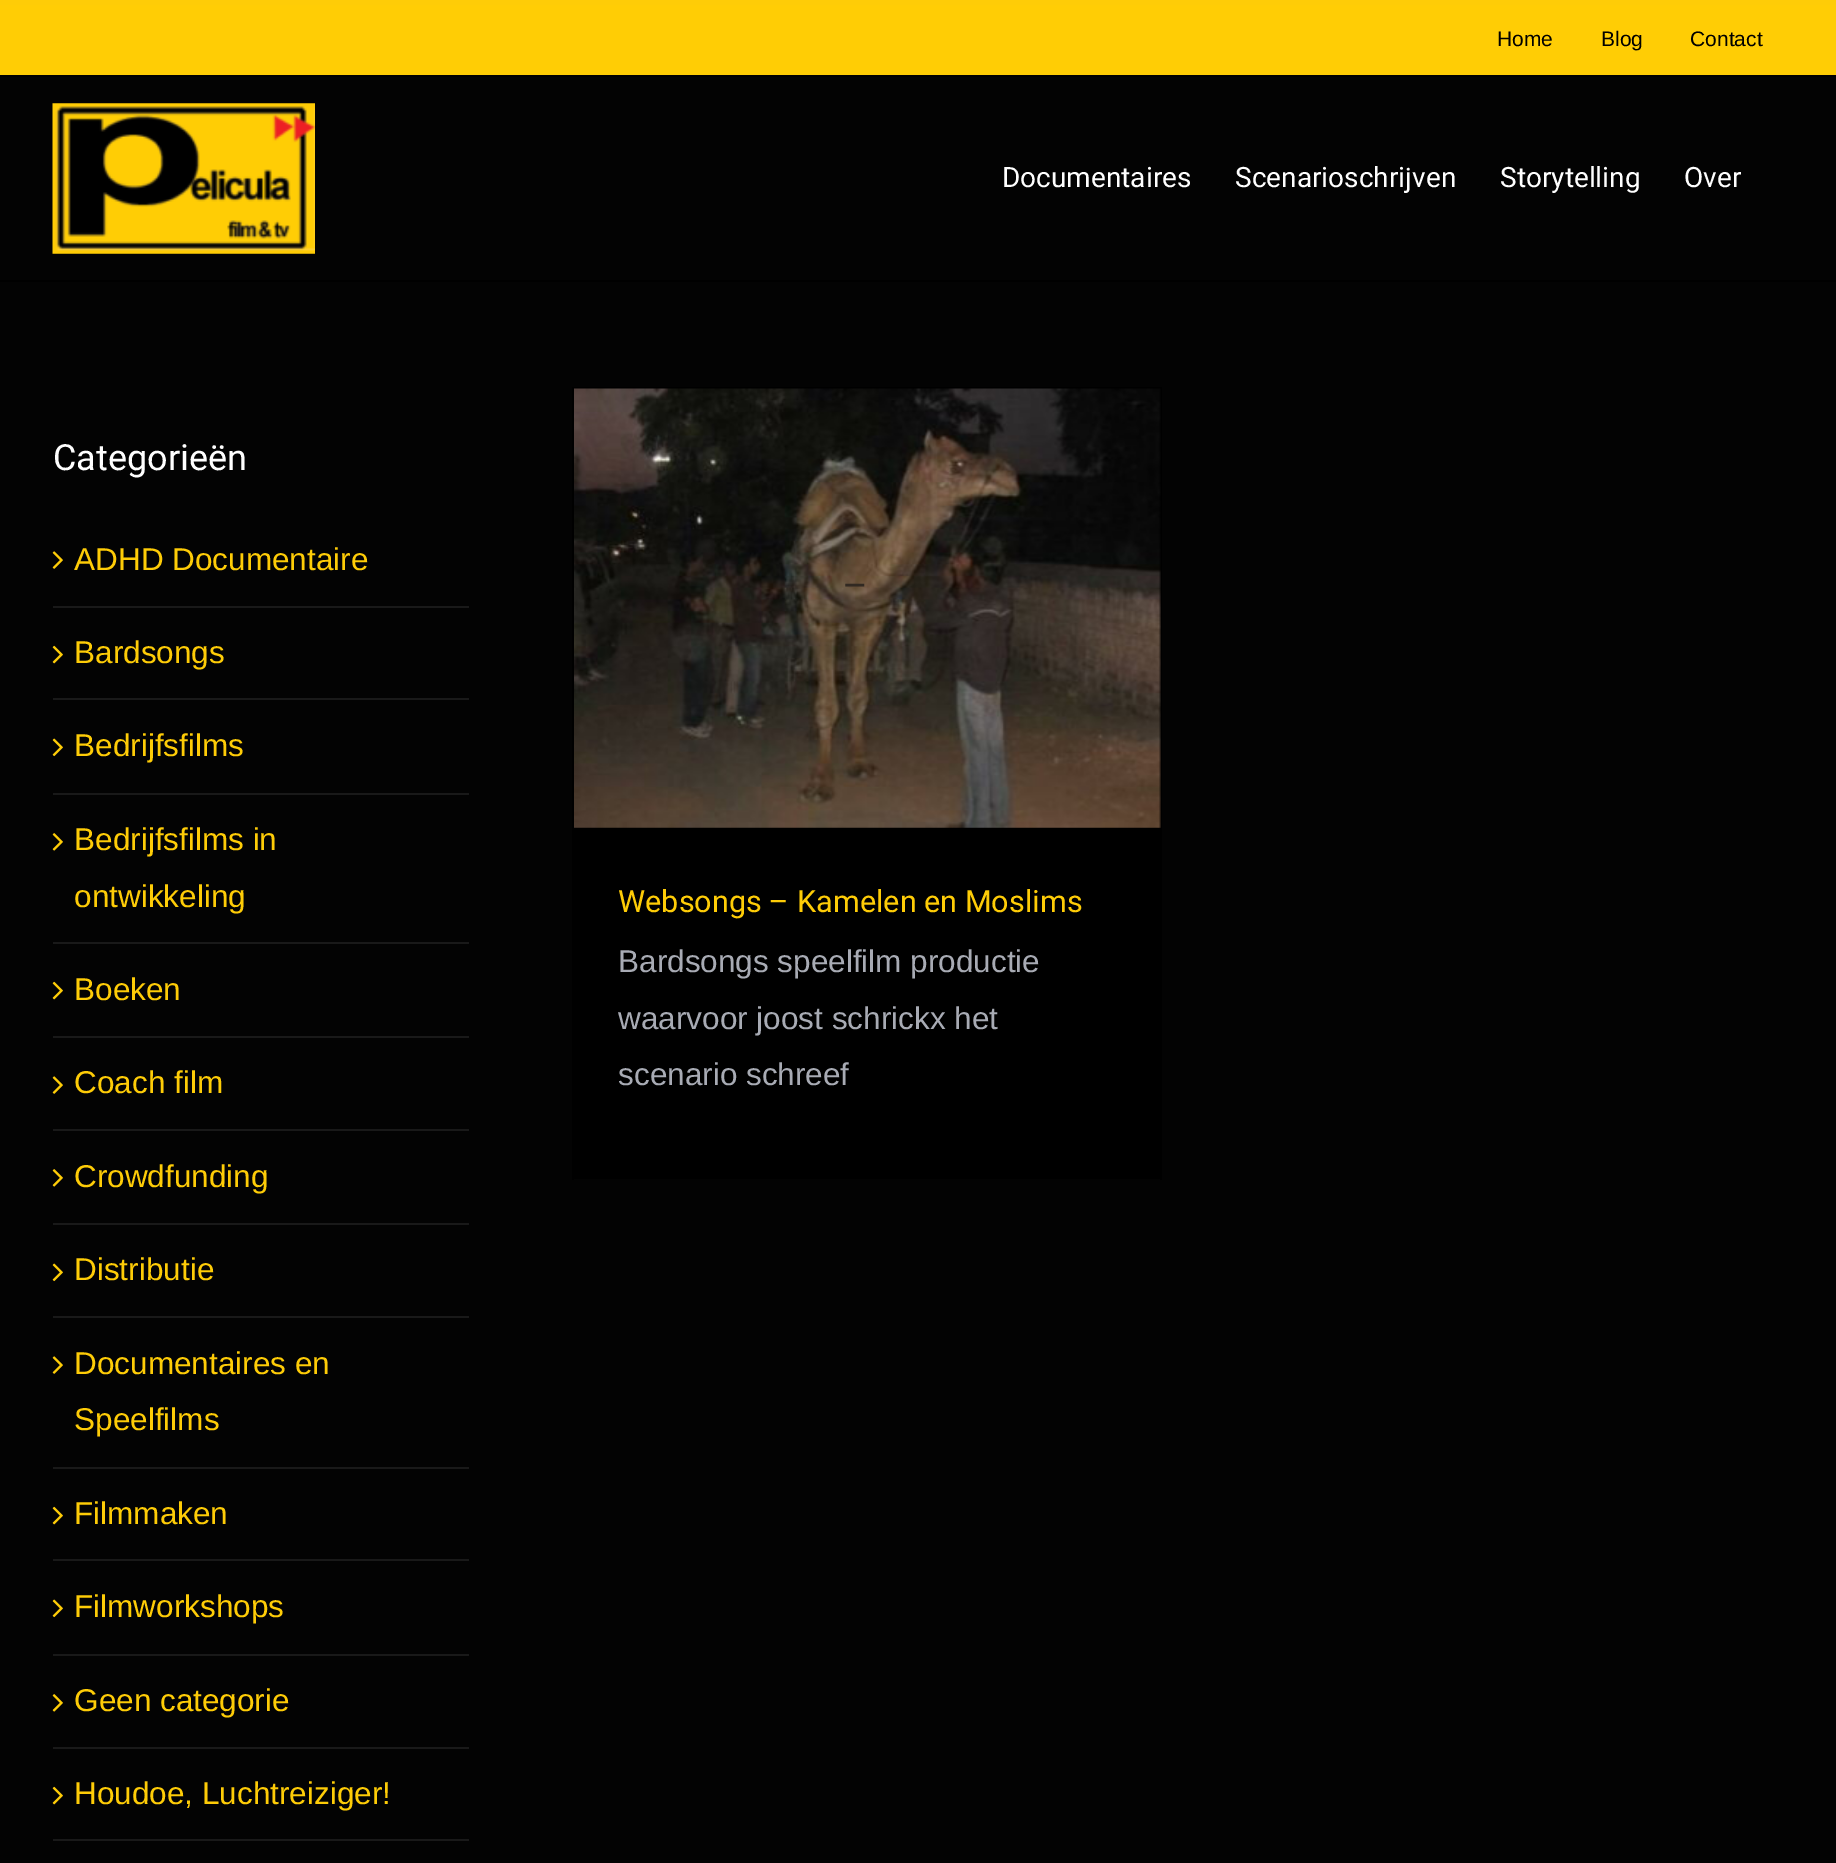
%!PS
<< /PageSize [1836 1863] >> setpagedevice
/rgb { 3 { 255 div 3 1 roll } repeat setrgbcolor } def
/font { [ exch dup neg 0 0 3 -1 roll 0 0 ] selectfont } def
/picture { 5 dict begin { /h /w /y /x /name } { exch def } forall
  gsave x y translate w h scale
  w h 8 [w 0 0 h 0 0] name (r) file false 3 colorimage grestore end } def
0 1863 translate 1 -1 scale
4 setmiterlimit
3 3 3 rgb
0 0 1836 1863 rectfill
[
  [0 5 1836 70 255 205 5]
  [0 0 1836 5 254 204 7]
  [0 75 1836 2 0 0 0]
  [0 280 1836 2 0 0 0]
] { aload pop rgb rectfill } forall
(img/1.rgb) 52 103 263 151 picture
25 25 25 rgb
53 606 416 2 rectfill
(img/2.rgb) 52 551 11 18 picture
53 698 416 2 rectfill
(img/3.rgb) 52 645 11 19 picture
53 793 416 2 rectfill
(img/4.rgb) 52 738 11 19 picture
53 942 416 2 rectfill
(img/5.rgb) 52 833 11 18 picture
53 1036 416 2 rectfill
(img/3.rgb) 52 981 11 19 picture
53 1129 416 2 rectfill
(img/2.rgb) 52 1076 11 18 picture
53 1223 416 2 rectfill
(img/5.rgb) 52 1169 11 18 picture
53 1316 416 2 rectfill
(img/4.rgb) 52 1263 11 19 picture
53 1467 416 2 rectfill
(img/2.rgb) 52 1356 11 18 picture
53 1559 416 2 rectfill
(img/3.rgb) 52 1506 11 19 picture
53 1654 416 2 rectfill
(img/4.rgb) 52 1599 11 19 picture
53 1747 416 2 rectfill
(img/5.rgb) 52 1694 11 18 picture
53 1839 416 2 rectfill
(img/3.rgb) 52 1786 11 19 picture
[
  [574 389 586 785 0 0 0]
  [572 387 590 2 0 0 0]
  [1160 387 2 793 0 0 0]
  [572 1174 590 5 0 0 0]
  [572 387 2 793 0 0 0]
] { aload pop rgb rectfill } forall
(img/6.rgb) 574 388 587 440 picture
/LiberationSans-Regular 21 font
[
  [(Home) 1497 46]
  [(Blog) 1601 46]
  [(Contact) 1690 46]
] { aload pop moveto show } forall
/Heebo-Regular 28 font
255 255 255 rgb
[
  [(Documentaires) 1002 187]
  [(Scenarioschrijven) 1235 187]
  [(Storytelling) 1500 187]
  [(Over) 1684 187]
] { aload pop moveto show } forall
/Heebo-Regular 36 font
53 470 moveto (Categorieën) show
/LiberationSans-Regular 31.5 font
254 204 7 rgb
[
  [(ADHD Documentaire) 74 570]
  [(Bardsongs) 74 663]
  [(Bedrijfsfilms) 74 756]
  [(Bedrijfsfilms in) 74 850]
  [(ontwikkeling) 74 907]
  [(Boeken) 74 1000]
  [(Coach film) 74 1093]
  [(Crowdfunding) 74 1187]
  [(Distributie) 74 1280]
  [(Documentaires en) 74 1374]
  [(Speelfilms) 74 1430]
  [(Filmmaken) 74 1524]
  [(Filmworkshops) 74 1617]
  [(Geen categorie) 74 1711]
  [(Houdoe, Luchtreiziger!) 74 1804]
] { aload pop moveto show } forall
/Heebo-Regular 39 font
49 41 34 rgb
843 599 moveto (–) show
/Heebo-Regular 30.6 font
254 204 7 rgb
618 912 moveto (Websongs – Kamelen en Moslims) show
/LiberationSans-Regular 31.5 font
168 171 180 rgb
[
  [(Bardsongs speelfilm productie) 618 972]
  [(waarvoor joost schrickx het) 618 1029]
  [(scenario schreef) 618 1085]
] { aload pop moveto show } forall
showpage
